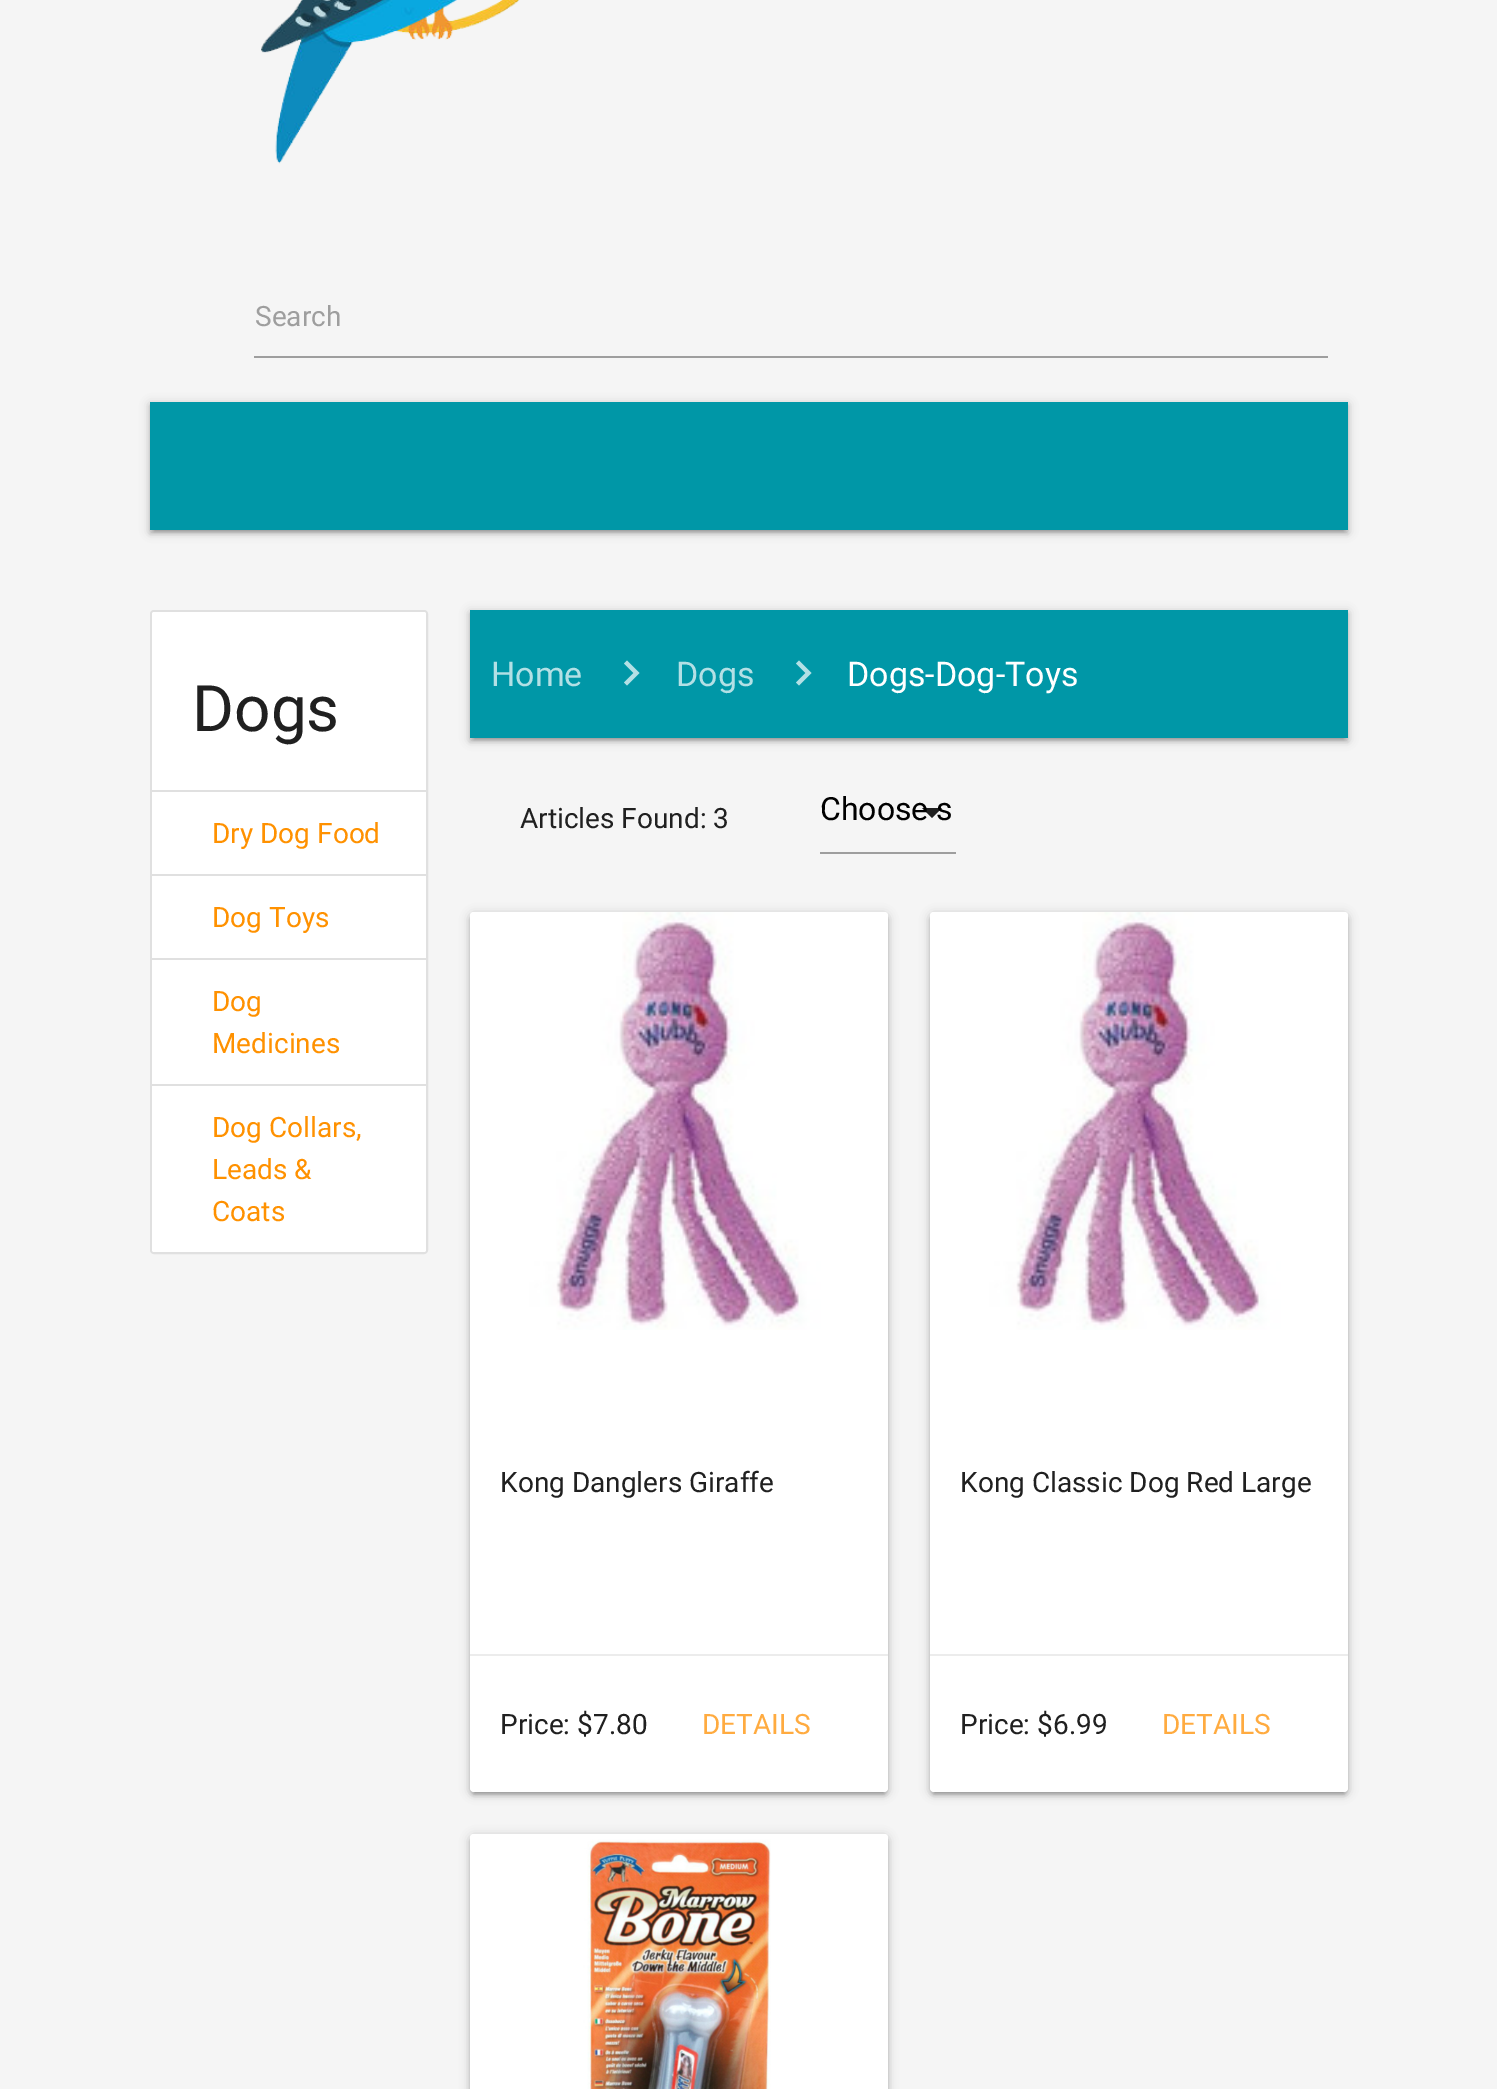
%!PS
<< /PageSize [1497 2089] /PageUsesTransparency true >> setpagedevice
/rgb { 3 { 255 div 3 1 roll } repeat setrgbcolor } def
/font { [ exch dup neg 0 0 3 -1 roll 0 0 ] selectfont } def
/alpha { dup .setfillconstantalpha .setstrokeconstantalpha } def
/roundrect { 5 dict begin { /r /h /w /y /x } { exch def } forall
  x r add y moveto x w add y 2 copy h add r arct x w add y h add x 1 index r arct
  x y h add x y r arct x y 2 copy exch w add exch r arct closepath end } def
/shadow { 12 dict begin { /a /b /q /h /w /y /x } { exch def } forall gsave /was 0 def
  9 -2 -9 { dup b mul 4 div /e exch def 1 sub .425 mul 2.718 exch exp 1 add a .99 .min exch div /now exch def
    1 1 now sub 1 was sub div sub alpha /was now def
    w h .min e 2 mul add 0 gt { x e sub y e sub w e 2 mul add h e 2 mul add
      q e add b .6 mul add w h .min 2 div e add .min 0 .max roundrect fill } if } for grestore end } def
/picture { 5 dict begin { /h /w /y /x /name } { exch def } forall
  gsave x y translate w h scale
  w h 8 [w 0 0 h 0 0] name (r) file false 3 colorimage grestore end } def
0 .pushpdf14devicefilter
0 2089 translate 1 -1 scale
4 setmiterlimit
245 245 245 rgb
0 0 1497 2089 rectfill
(img/1.rgb) 261 0 259 164 picture
158 158 158 rgb
254 356 1074 2 rectfill
0 0 0 rgb
150 404 1198 128 0 5 0.2 shadow
154 412 1190 120 0 1 0.12 shadow
150 406 1198 128 0 2 0.14 shadow
0 151 167 rgb
150 402 1198 128 rectfill
224 224 224 rgb
2 setlinewidth
151 611 276 642 3 roundrect stroke
255 255 255 rgb
154 612 moveto 424 612 lineto 425 612 426 613 426 614 curveto 426 792 lineto 152 792 lineto 152 614 lineto 152 613 153 612 154 612 curveto closepath fill
[
  [152 790 274 2 224 224 224]
  [152 792 274 82 255 255 255]
  [152 874 274 2 224 224 224]
  [152 876 274 82 255 255 255]
  [152 958 274 2 224 224 224]
  [152 960 274 124 255 255 255]
  [152 1084 274 2 224 224 224]
] { aload pop rgb rectfill } forall
255 255 255 rgb
152 1086 moveto 426 1086 lineto 426 1250 lineto 426 1251 425 1252 424 1252 curveto 154 1252 lineto 153 1252 152 1251 152 1250 curveto closepath fill
0 0 0 rgb
470 612 878 128 0 5 0.2 shadow
474 620 870 120 0 1 0.12 shadow
470 614 878 128 0 2 0.14 shadow
0 151 167 rgb
470 610 878 128 rectfill
179 224 229 rgb
627 660.5 moveto 639.5 673 lineto 627 685.5 lineto 624 682.5 lineto 633.5 673 lineto 624 663.5 lineto closepath fill
799 660.5 moveto 811.5 673 lineto 799 685.5 lineto 796 682.5 lineto 805.5 673 lineto 796 663.5 lineto closepath fill
158 158 158 rgb
820 852 136 2 rectfill
32 32 32 rgb
922 808 moveto 932 818 lineto 942 808 lineto closepath fill
0 0 0 rgb
470 914 418 880 4 5 0.2 shadow
474 922 410 872 0 1 0.12 shadow
470 916 418 880 4 2 0.14 shadow
255 255 255 rgb
470 912 418 880 4 roundrect fill
(img/2.rgb) 470 912 418 418 picture
236 236 236 rgb
470 1654 418 2 rectfill
0 0 0 rgb
930 914 418 880 4 5 0.2 shadow
934 922 410 872 0 1 0.12 shadow
930 916 418 880 4 2 0.14 shadow
255 255 255 rgb
930 912 418 880 4 roundrect fill
(img/2.rgb) 930 912 418 418 picture
236 236 236 rgb
930 1654 418 2 rectfill
0 0 0 rgb
470 1836 418 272 4 5 0.2 shadow
470 1838 418 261 4 2 0.14 shadow
(img/3.rgb) 470 1834 418 255 picture
/Roboto-Regular 28 font
158 158 158 rgb
255 326 moveto (Search) show
/Roboto-Regular 64 font
32 32 32 rgb
192 731 moveto (Dogs) show
/Roboto-Regular 28 font
255 145 0 rgb
[
  [(Dry Dog Food) 212 843]
  [(Dog Toys) 212 927]
  [(Dog) 212 1011]
  [(Medicines) 212 1053]
  [(Dog Collars,) 212 1137]
  [(Leads &) 212 1179]
  [(Coats) 212 1221]
] { aload pop moveto show } forall
/Roboto-Regular 34 font
179 224 229 rgb
491 686 moveto (Home) show
676 686 moveto (Dogs) show
255 255 255 rgb
847 686 moveto (Dogs-Dog-Toys) show
/Roboto-Regular 28 font
32 32 32 rgb
520 828 moveto (Articles Found: 3) show
/Roboto-Regular 32 font
0 0 0 rgb
820 820 moveto (Choose s) show
/Roboto-Regular 28 font
32 32 32 rgb
500 1492 moveto (Kong Danglers Giraffe) show
500 1734 moveto (Price: $7.80) show
255 171 64 rgb
702 1734 moveto (DETAILS) show
32 32 32 rgb
960 1492 moveto (Kong Classic Dog Red Large) show
960 1734 moveto (Price: $6.99) show
255 171 64 rgb
1162 1734 moveto (DETAILS) show
.poppdf14devicefilter showpage
